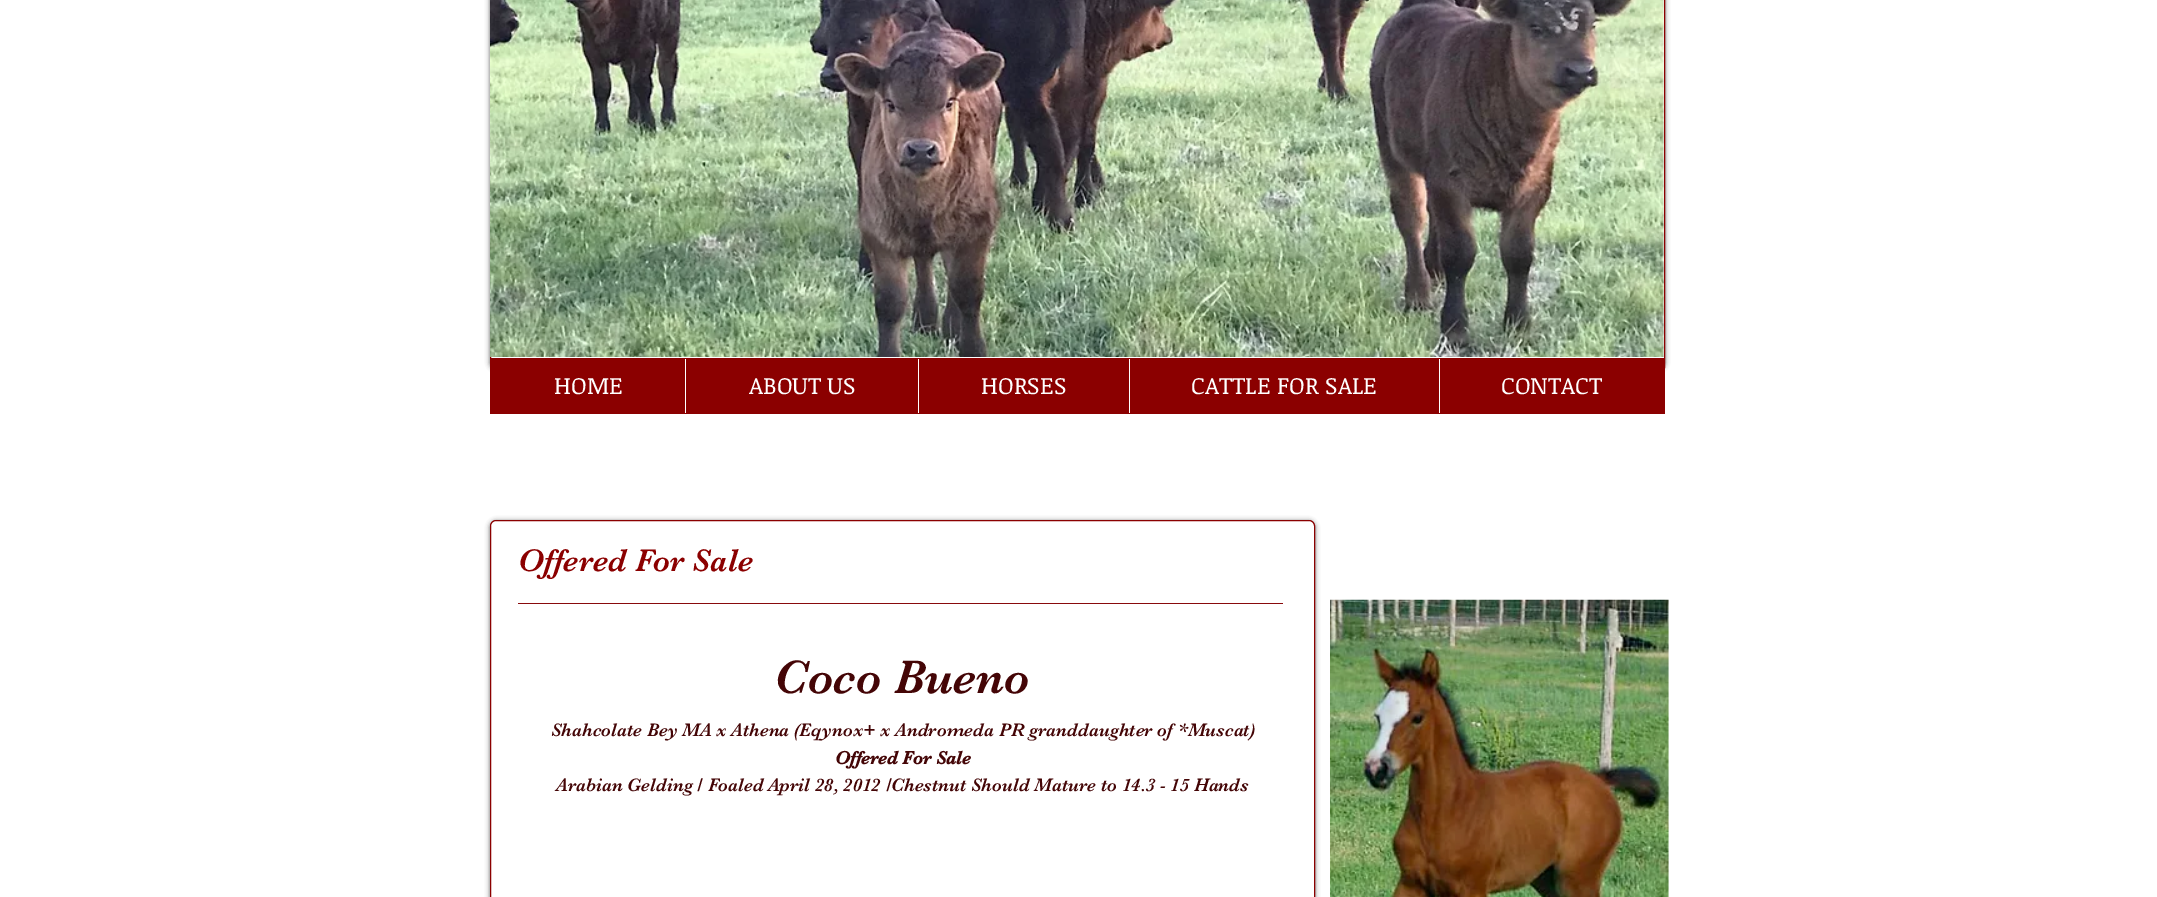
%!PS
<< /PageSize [2157 897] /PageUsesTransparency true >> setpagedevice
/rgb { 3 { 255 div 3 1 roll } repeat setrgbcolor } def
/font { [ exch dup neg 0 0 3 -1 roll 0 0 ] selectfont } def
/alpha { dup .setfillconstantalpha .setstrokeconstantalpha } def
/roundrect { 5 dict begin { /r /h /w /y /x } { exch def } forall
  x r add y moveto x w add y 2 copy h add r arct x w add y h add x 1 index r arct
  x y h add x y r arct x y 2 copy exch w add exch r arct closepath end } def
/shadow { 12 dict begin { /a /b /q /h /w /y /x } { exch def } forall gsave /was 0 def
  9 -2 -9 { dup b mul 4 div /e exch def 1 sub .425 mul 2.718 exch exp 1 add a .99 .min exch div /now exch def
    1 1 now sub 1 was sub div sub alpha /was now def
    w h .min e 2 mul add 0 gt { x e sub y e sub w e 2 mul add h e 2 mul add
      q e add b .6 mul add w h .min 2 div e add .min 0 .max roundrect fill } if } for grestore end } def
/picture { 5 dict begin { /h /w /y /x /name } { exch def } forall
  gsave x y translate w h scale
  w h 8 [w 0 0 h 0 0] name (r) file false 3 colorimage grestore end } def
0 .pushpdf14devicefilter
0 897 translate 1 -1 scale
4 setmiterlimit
255 255 255 rgb
0 0 2157 897 rectfill
0 0 0 rgb
490 -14 1175 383 6 2.5 0.6 shadow
255 255 255 rgb
491 0 1173 358 rectfill
139 0 0 rgb
490.5 -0.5 1174 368 rectstroke
(img/1.rgb) 490 0 1174 357 picture
[
  [490 358 1175 56 139 0 0]
  [685 359 1 54 255 255 255]
  [918 359 1 54 255 255 255]
  [1129 359 1 54 255 255 255]
  [1439 359 1 54 255 255 255]
] { aload pop rgb rectfill } forall
0 0 0 rgb
490 521 825 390 6 2.5 0.6 shadow
255 255 255 rgb
490.5 520.5 824 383 5.5 roundrect gsave fill grestore
139 0 0 rgb
stroke
136 10 12 rgb
518 603 765 1 rectfill
(img/2.rgb) 1330 599 339 298 picture
/NoticiaText-Regular 23.75 font
255 255 255 rgb
[
  [(HOME) 554 394]
  [(ABOUT US) 749 394]
  [(HORSES) 981 394]
  [(CATTLE FOR SALE) 1191 394]
  [(CONTACT) 1501 394]
] { aload pop moveto show } forall
/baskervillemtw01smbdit-Regular 32.5 font
139 0 0 rgb
518 571 moveto (Offered For Sale) show
/baskervillemtw01smbdit-Regular 48.75 font
68 5 6 rgb
774 693 moveto (Coco Bueno) show
/baskervillemtw01smbdit-Regular 18.75 font
551 736 moveto (Shahcolate Bey MA x Athena \(Eqynox+ x Andromeda PR granddaughter of *Muscat\)) show
/baskervillemtw01smbdit-Bold 18.75 font
835 764 moveto (Offered For Sale) show
/baskervillemtw01smbdit-Regular 18.75 font
556 791 moveto (Arabian Gelding / Foaled April 28, 2012 /Chestnut Should Mature to 14.3 - 15 Hands) show
.poppdf14devicefilter showpage
